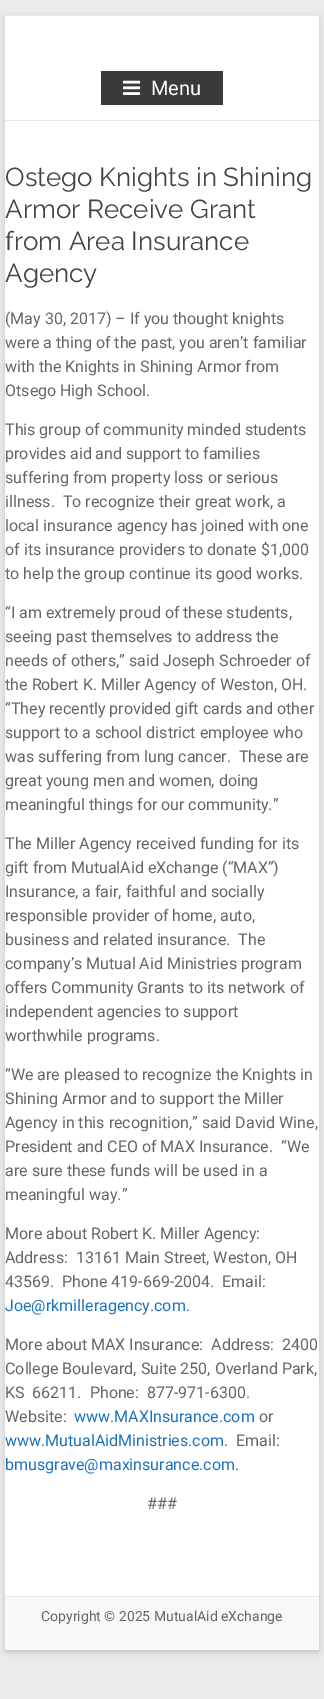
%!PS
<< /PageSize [324 1699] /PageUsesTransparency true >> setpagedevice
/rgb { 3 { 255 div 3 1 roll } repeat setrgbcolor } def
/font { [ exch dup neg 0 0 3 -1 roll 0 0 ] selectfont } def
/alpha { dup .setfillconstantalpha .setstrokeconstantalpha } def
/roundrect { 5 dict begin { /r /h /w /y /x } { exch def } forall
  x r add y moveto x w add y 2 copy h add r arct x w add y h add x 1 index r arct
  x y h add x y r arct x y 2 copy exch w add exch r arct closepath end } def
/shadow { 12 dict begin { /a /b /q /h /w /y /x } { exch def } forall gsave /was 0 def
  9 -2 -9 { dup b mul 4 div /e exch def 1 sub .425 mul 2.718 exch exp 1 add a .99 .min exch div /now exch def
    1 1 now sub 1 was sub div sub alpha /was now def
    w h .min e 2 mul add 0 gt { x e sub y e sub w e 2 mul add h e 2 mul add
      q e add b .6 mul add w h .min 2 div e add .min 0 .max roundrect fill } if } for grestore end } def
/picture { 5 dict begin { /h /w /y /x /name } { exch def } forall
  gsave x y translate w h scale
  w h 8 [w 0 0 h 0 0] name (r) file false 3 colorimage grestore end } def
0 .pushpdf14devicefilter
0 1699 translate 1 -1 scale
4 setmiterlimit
234 234 234 rgb
0 0 324 1699 rectfill
100 100 100 rgb
5 17 314 1635 0 3 0.3 shadow
[
  [5 16 314 1580 255 255 255]
  [5 15 314 1 234 234 234]
  [5 120 314 1 234 234 234]
  [101 71 122 34 58 58 58]
] { aload pop rgb rectfill } forall
(img/1.rgb) 123 80 18 15 picture
248 248 248 rgb
5 1597 314 53 rectfill
234 234 234 rgb
5 1596 314 1 rectfill
/Roboto-Regular 20 font
255 255 255 rgb
151 95 moveto (Menu) show
/Raleway-Thin 26 font
68 68 68 rgb
[
  [(Ostego Knights in Shining) 5 186]
  [(Armor Receive Grant) 5 218]
  [(from Area Insurance) 5 250]
  [(Agency) 5 282]
] { aload pop moveto show } forall
/Roboto-Regular 16 font
102 102 102 rgb
[
  [(\(May 30, 2017\) – If you thought knights) 5 324]
  [(were a thing of the past, you aren’t familiar) 5 348]
  [(with the Knights in Shining Armor from) 5 372]
  [(Otsego High School.) 5 396]
  [(This group of community minded students) 5 435]
  [(provides aid and support to families) 5 459]
  [(suffering from property loss or serious) 5 483]
  [(illness.  To recognize their great work, a) 5 507]
  [(local insurance agency has joined with one) 5 531]
  [(of its insurance providers to donate $1,000) 5 555]
  [(to help the group continue its good works.) 5 579]
  [(“I am extremely proud of these students,) 5 618]
  [(seeing past themselves to address the) 5 642]
  [(needs of others,” said Joseph Schroeder of) 5 666]
  [(the Robert K. Miller Agency of Weston, OH.) 5 690]
  [(“They recently provided gift cards and other) 5 714]
  [(support to a school district employee who) 5 738]
  [(was suffering from lung cancer.  These are) 5 762]
  [(great young men and women, doing) 5 786]
  [(meaningful things for our community.”) 5 810]
  [(The Miller Agency received funding for its) 5 849]
  [(gift from MutualAid eXchange \(“MAX”\)) 5 873]
  [(Insurance, a fair, faithful and socially) 5 897]
  [(responsible provider of home, auto,) 5 921]
  [(business and related insurance.  The) 5 945]
  [(company’s Mutual Aid Ministries program) 5 969]
  [(offers Community Grants to its network of) 5 993]
  [(independent agencies to support) 5 1017]
  [(worthwhile programs.) 5 1041]
  [(“We are pleased to recognize the Knights in) 5 1080]
  [(Shining Armor and to support the Miller) 5 1104]
  [(Agency in this recognition,” said David Wine,) 5 1128]
  [(President and CEO of MAX Insurance.  “We) 5 1152]
  [(are sure these funds will be used in a) 5 1176]
  [(meaningful way.”) 5 1200]
  [(More about Robert K. Miller Agency:) 5 1239]
  [(Address:  13161 Main Street, Weston, OH) 5 1263]
  [(43569.  Phone 419-669-2004.  Email:) 5 1287]
] { aload pop moveto show } forall
30 115 190 rgb
5 1311 moveto (Joe@rkmilleragency.com) show
102 102 102 rgb
[
  [(.) 186 1311]
  [(More about MAX Insurance:  Address:  2400) 5 1350]
  [(College Boulevard, Suite 250, Overland Park,) 5 1374]
  [(KS  66211.  Phone:  877-971-6300.) 5 1398]
  [(Website:) 5 1422]
] { aload pop moveto show } forall
30 115 190 rgb
74 1422 moveto (www.MAXInsurance.com) show
102 102 102 rgb
259 1422 moveto (or) show
30 115 190 rgb
5 1446 moveto (www.MutualAidMinistries.com) show
102 102 102 rgb
224 1446 moveto (.  Email:) show
30 115 190 rgb
5 1470 moveto (bmusgrave@maxinsurance.com) show
102 102 102 rgb
235 1470 moveto (.) show
147 1509 moveto (###) show
/Roboto-Regular 14 font
41 1621 moveto (Copyright © 2025 MutualAid eXchange) show
.poppdf14devicefilter showpage
